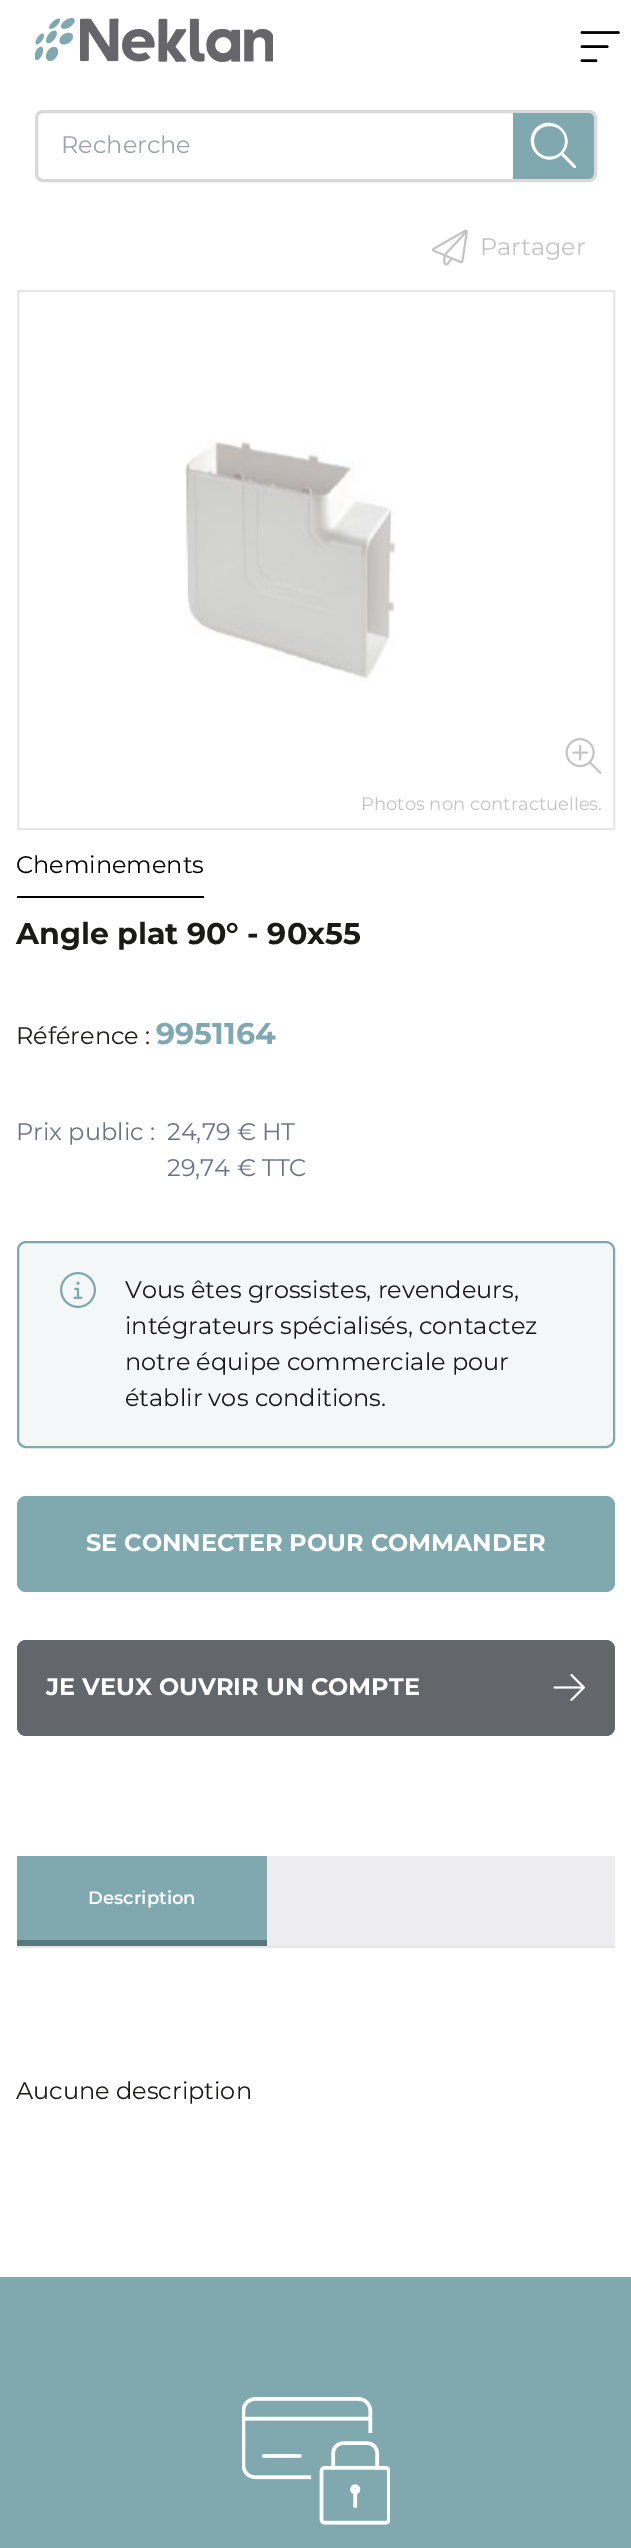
%!PS
<< /PageSize [631 2548] >> setpagedevice
/rgb { 3 { 255 div 3 1 roll } repeat setrgbcolor } def
/font { [ exch dup neg 0 0 3 -1 roll 0 0 ] selectfont } def
/roundrect { 5 dict begin { /r /h /w /y /x } { exch def } forall
  x r add y moveto x w add y 2 copy h add r arct x w add y h add x 1 index r arct
  x y h add x y r arct x y 2 copy exch w add exch r arct closepath end } def
/picture { 5 dict begin { /h /w /y /x /name } { exch def } forall
  gsave x y translate w h scale
  w h 8 [w 0 0 h 0 0] name (r) file false 3 colorimage grestore end } def
0 2548 translate 1 -1 scale
4 setmiterlimit
255 255 255 rgb
0 0 631 2548 rectfill
(img/1.rgb) 35 18 238 44 picture
(img/2.rgb) 580 31 40 32 picture
217 217 217 rgb
3 setlinewidth
36.5 111.5 559 69 6.5 roundrect stroke
127 169 174 rgb
513 113 moveto 588 113 lineto 591.5 113 594 115.5 594 119 curveto 594 173 lineto 594 176.5 591.5 179 588 179 curveto 513 179 lineto closepath fill
255 255 255 rgb
565 141 moveto 565 121 534 121 534 141 curveto 534 162 565 162 565 141 curveto closepath 561 155 moveto 544 170 520 145 536 128 curveto 553 112 578 136 563 153 curveto 565 155 576 165 576 167 curveto 576 168 574 168 574 168 curveto closepath fill
(img/3.rgb) 432 229 36 37 picture
229 231 235 rgb
2 setlinewidth
18 291 596 538 rectstroke
(img/4.rgb) 184 440 212 242 picture
(img/5.rgb) 565 738 37 36 picture
0 0 0 rgb
17 896 187 2 rectfill
243 247 247 rgb
18 1242 596 205 8 roundrect gsave fill grestore
127 169 174 rgb
stroke
(img/6.rgb) 60 1272 36 36 picture
17 1496 598 96 9 roundrect fill
99 102 106 rgb
17 1640 598 96 9 roundrect fill
(img/7.rgb) 553 1674 32 27 picture
[
  [267 1856 348 90 237 237 239]
  [17 1946 598 2 229 231 235]
  [17 1856 250 84 127 169 174]
  [17 1940 250 6 88 120 124]
  [0 2277 631 271 127 169 174]
] { aload pop rgb rectfill } forall
(img/8.rgb) 242 2397 148 128 picture
/Montserrat-Regular 24 font
156 163 175 rgb
61 153 moveto (Recherche) show
196 196 196 rgb
480 255 moveto (Partager) show
/Montserrat-Regular 18 font
361 810 moveto (Photos non contractuelles.) show
/Montserrat-Regular 24 font
0 0 0 rgb
16 873 moveto (Cheminements) show
/Montserrat-Bold 30 font
26 26 25 rgb
16 944 moveto (Angle plat 90° - 90x55) show
/Montserrat-Regular 24 font
16 1044 moveto (Référence :) show
/Montserrat-Bold 30 font
127 169 174 rgb
156 1044 moveto (9951164) show
/Montserrat-Regular 24 font
107 114 128 rgb
[
  [(Prix public :) 16 1140]
  [(24,79 € HT) 167 1140]
  [(29,74 € TTC) 167 1176]
] { aload pop moveto show } forall
26 26 25 rgb
[
  [(Vous êtes grossistes, revendeurs,) 125 1298]
  [(intégrateurs spécialisés, contactez) 125 1334]
  [(notre équipe commerciale pour) 125 1370]
  [(établir vos conditions.) 125 1406]
] { aload pop moveto show } forall
/Montserrat-Bold 24 font
255 255 255 rgb
86 1551 moveto (SE CONNECTER POUR COMMANDER) show
46 1695 moveto (JE VEUX OUVRIR UN COMPTE) show
/Montserrat-SemiBold 18 font
88 1904 moveto (Description) show
/Montserrat-Regular 24 font
26 26 25 rgb
16 2099 moveto (Aucune description) show
showpage
